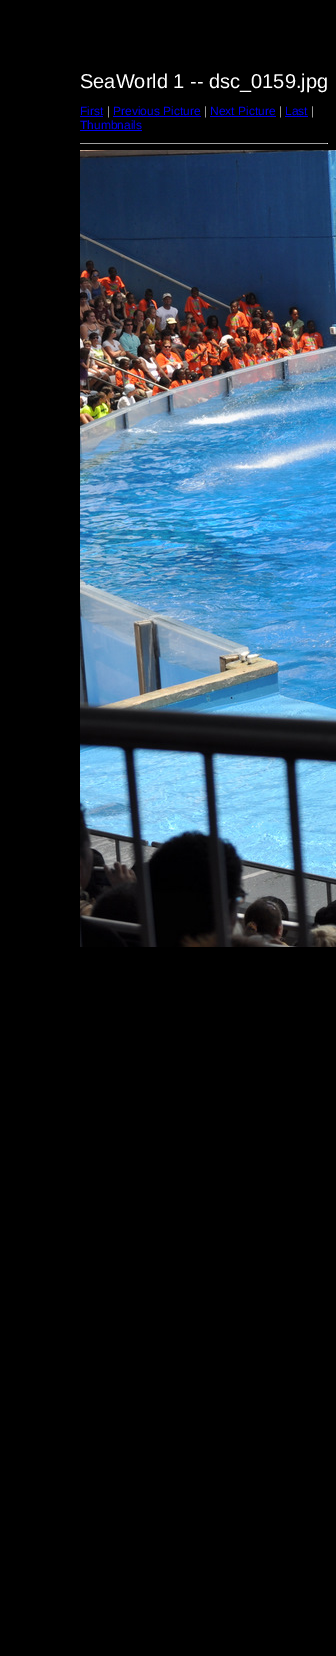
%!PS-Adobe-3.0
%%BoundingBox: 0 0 336 1656
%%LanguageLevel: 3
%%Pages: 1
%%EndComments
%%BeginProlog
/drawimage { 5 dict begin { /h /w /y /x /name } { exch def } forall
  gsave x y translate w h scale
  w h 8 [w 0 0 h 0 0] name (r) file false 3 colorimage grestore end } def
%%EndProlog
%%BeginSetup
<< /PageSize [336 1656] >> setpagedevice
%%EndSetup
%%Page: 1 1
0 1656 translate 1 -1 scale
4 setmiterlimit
0 setgray
0 0 336 1656 rectfill
0 0 0.933 setrgbcolor
80 116 23 1 rectfill
113 116 88 1 rectfill
210 116 66 1 rectfill
285 116 23 1 rectfill
80 130 62 1 rectfill
0.624 setgray
80 143 248 1 rectfill
0.933 setgray
327 143 1 1 rectfill
(images/1.raw) 80 150 256 797 drawimage
/LiberationSans-Regular [20 0 0 -20 0 0] selectfont
1 setgray
80 88 moveto (SeaWorld 1 -- dsc_0159.jpg) show
/LiberationSans-Regular [12 0 0 -12 0 0] selectfont
0 0 0.933 setrgbcolor
80 115 moveto (First) show
0.6 setgray
107 115 moveto (|) show
0 0 0.933 setrgbcolor
113 115 moveto (Previous Picture) show
0.6 setgray
204 115 moveto (|) show
0 0 0.933 setrgbcolor
210 115 moveto (Next Picture) show
0.6 setgray
279 115 moveto (|) show
0 0 0.933 setrgbcolor
285 115 moveto (Last) show
0.6 setgray
311 115 moveto (|) show
0 0 0.933 setrgbcolor
80 129 moveto (Thumbnails) show
showpage
%%EOF
